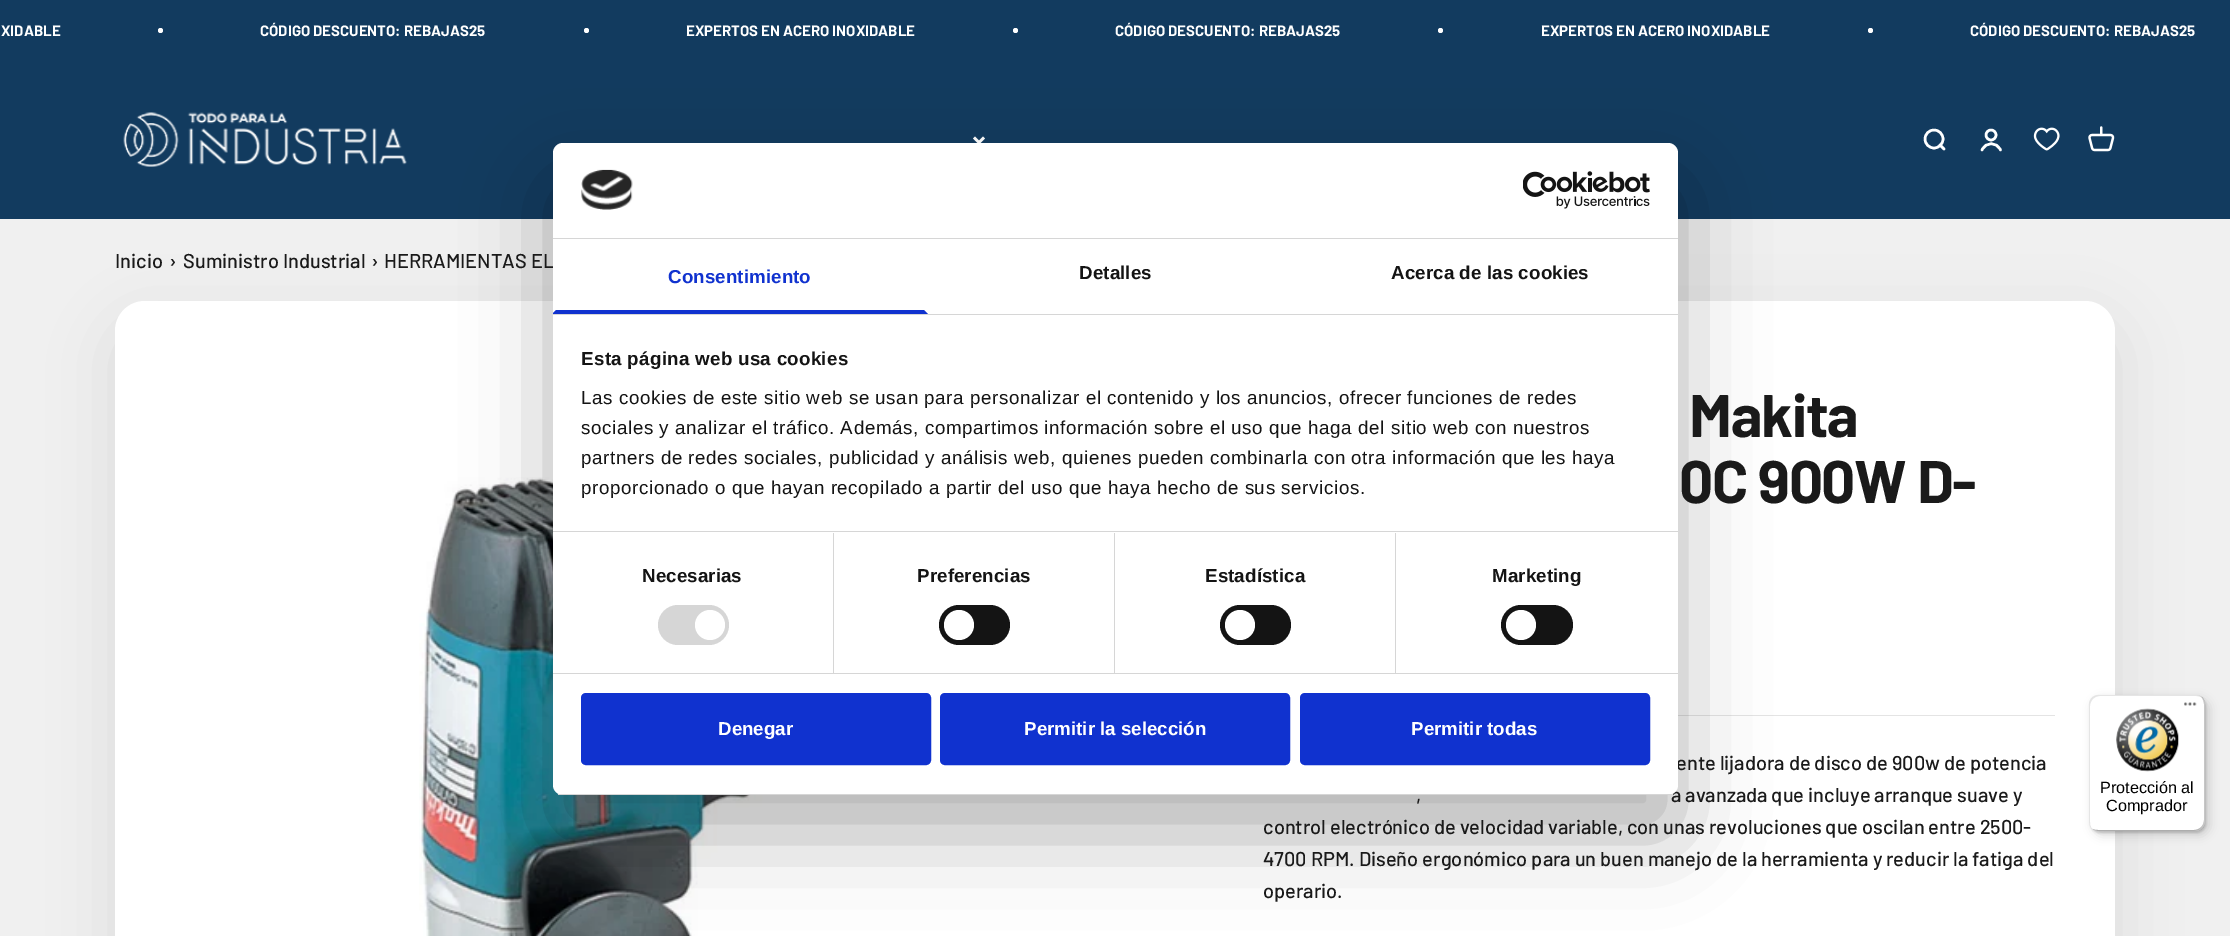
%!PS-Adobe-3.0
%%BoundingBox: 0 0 2230 936
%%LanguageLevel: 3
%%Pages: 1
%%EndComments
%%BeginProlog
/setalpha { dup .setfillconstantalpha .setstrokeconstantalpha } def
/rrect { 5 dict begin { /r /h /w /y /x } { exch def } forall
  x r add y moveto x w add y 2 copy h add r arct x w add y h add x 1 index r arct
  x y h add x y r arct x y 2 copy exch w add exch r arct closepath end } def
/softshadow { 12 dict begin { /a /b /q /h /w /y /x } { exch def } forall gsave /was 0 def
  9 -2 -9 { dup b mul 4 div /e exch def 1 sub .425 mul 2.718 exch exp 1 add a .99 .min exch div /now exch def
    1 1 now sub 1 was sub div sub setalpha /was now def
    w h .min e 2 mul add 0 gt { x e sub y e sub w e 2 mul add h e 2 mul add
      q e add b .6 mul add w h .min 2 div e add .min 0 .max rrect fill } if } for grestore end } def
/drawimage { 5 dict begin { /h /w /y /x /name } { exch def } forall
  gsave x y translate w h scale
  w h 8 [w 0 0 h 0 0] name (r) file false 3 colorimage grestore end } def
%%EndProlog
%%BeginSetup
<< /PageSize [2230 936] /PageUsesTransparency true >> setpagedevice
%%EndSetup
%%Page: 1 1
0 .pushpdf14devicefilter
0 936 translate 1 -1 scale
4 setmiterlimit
0.941 setgray
0 0 2230 936 rectfill
0.071 0.231 0.373 setrgbcolor
0 0 2230 219 rectfill
1 setgray
newpath 160.5 30.5 2.5 0 360 arc closepath fill
newpath 586.5 30.5 2.5 0 360 arc closepath fill
newpath 1015.5 30.5 2.5 0 360 arc closepath fill
newpath 1440.5 30.5 2.5 0 360 arc closepath fill
newpath 1870.5 30.5 2.5 0 360 arc closepath fill
(images/1.raw) 123 112 284 55 drawimage
2.5 setlinewidth
newpath 974 137.5 moveto 979 142.5 lineto 984 137.5 lineto stroke
newpath 1934 139 9 0 360 arc closepath stroke
1 setlinecap
1 setlinejoin
newpath 1940 145 moveto 1944 149 lineto stroke
0 setlinecap
0 setlinejoin
newpath 1991 135 5 0 360 arc closepath stroke
1 setlinecap
newpath 1982 150 moveto 1986 141.5 1996.5 141.5 2000.5 150 curveto stroke
(images/2.raw) 2033 127 27 24 drawimage
(images/3.raw) 2088 126 27 26 drawimage
0.102 setgray
115 324 2000 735 30 31 0.1 softshadow
1 setgray
115 301 2000 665 30 rrect fill
(images/4.raw) 419 477 639 459 drawimage
0.894 setgray
1678 715 377 1 rectfill
0 setgray
553 183 1125 652 10 42.5 0.3 softshadow
2093 699 116 136 10 5 0.15 softshadow
2090 696 116 137 10 1 0.15 softshadow
1 setgray
2089 695 116 136 10 rrect fill
0.1 setalpha
0 setgray
newpath 2100 696 moveto 2196 696 lineto 2199 696 2201 697 2203 698 curveto 2201 696 2198 695 2195 695 curveto 2099 695 lineto 2093 695 2089 699 2089 705 curveto 2089 821 lineto 2089 823 2090 826 2091 827 curveto 2090 826 2090 824 2090 822 curveto 2090 706 lineto 2090 701 2094 696 2100 696 curveto closepath fill
0.2 setalpha
newpath 2093 829 moveto 2094 830 2097 831 2099 831 curveto 2195 831 lineto 2201 831 2205 827 2205 821 curveto 2205 705 lineto 2205 702 2204 699 2202 697 curveto 2203 699 2204 701 2204 704 curveto 2204 820 lineto 2204 826 2199 830 2194 830 curveto 2098 830 lineto 2096 830 2094 830 2093 829 curveto closepath fill
0.196 setgray
newpath 2093 829 moveto 2094 830 2097 831 2099 831 curveto 2195 831 lineto 2201 831 2205 827 2205 821 curveto 2205 705 lineto 2205 702 2204 699 2201 697 curveto 2203 699 2204 702 2204 704 curveto 2204 820 lineto 2204 826 2200 830 2194 830 curveto 2098 830 lineto 2096 830 2094 830 2093 829 curveto closepath fill
0.3 setalpha
1 setgray
newpath 2194 831 moveto 2195 831 lineto 2201 831 2205 827 2205 821 curveto 2205 705 lineto 2205 702 2204 699 2201 697 curveto 2203 699 2204 702 2204 704 curveto 2204 821 lineto 2204 826 2200 831 2194 831 curveto closepath fill
1 setalpha
(images/7.raw) 2184 702 13 4 drawimage
(images/8.raw) 2116 708 63 64 drawimage
/Barlow-Bold [15 0 0 -15 0 0] selectfont
1 36 moveto (XIDABLE) show
260 36 moveto (CÓDIGO DESCUENTO: REBAJAS25) show
686 36 moveto (EXPERTOS EN ACERO INOXIDABLE) show
1115 36 moveto (CÓDIGO DESCUENTO: REBAJAS25) show
1541 36 moveto (EXPERTOS EN ACERO INOXIDABLE) show
1970 36 moveto (CÓDIGO DESCUENTO: REBAJAS25) show
/Barlow-Medium [20 0 0 -20 0 0] selectfont
0.102 setgray
115 268 moveto (Inicio) show
169 268 moveto (›) show
183 268 moveto (Suministro Industrial) show
371 268 moveto (›) show
384 268 moveto (HERRAMIENTAS EL) show
/Barlow-Bold [60 0 0 -60 0 0] selectfont
1689 437 moveto -1.25 0 (Makita) ashow
1679 503 moveto -1.25 0 (0C 900W D-) ashow
/Barlow-Medium [20 0 0 -20 0 0] selectfont
1676 770 moveto (ente lijadora de disco de 900w de potencia) show
1416 802 moveto (,) show
1671 802 moveto (a avanzada que incluye arranque suave y) show
1263 834 moveto (control electrónico de velocidad variable, con unas revoluciones que oscilan entre 2500-) show
1263 866 moveto (4700 RPM. Diseño ergonómico para un buen manejo de la herramienta y reducir la fatiga del) show
1263 898 moveto (operario.) show
1 setgray
553 143 1125 652 10 rrect fill
0.839 setgray
553 238 1125 1 rectfill
(images/5.raw) 581 169 52 41 drawimage
(images/6.raw) 1523 171 127 38 drawimage
553 314 1125 1 rectfill
0.063 0.196 0.812 setrgbcolor
newpath 928 314 moveto 553 314 lineto 553 313 lineto 556 310 lineto 924 310 lineto closepath fill
/LiberationSans-Bold [18.75 0 0 -18.75 0 0] selectfont
668 283 moveto 0.1 0 (Consentimiento) ashow
0.078 setgray
1079 279 moveto 0.1 0 (Detalles) ashow
1391 279 moveto 0.1 0 (Acerca de las cookies) ashow
0.839 setgray
553 531 1125 1 rectfill
0.078 setgray
581 365 moveto 0.3 0 (Esta página web usa cookies) ashow
/LiberationSans-Regular [18.75 0 0 -18.75 0 0] selectfont
581 404 moveto 0.62 0 (Las cookies de este sitio web se usan para personalizar el contenido y los anuncios, ofrecer funciones de redes) ashow
581 434 moveto 0.62 0 (sociales y analizar el tráfico. Además, compartimos información sobre el uso que haga del sitio web con nuestros) ashow
581 464 moveto 0.62 0 (partners de redes sociales, publicidad y análisis web, quienes pueden combinarla con otra información que les haya) ashow
581 494 moveto 0.62 0 (proporcionado o que hayan recopilado a partir del uso que haya hecho de sus servicios.) ashow
0.839 setgray
553 673 1125 1 rectfill
833 533 1 140 rectfill
/LiberationSans-Bold [18.75 0 0 -18.75 0 0] selectfont
0.078 setgray
642 582 moveto 0.1 0 (Necesarias) ashow
0.839 setgray
658 605 71 40 20 rrect fill
1 setgray
newpath 710 625 15 0 360 arc closepath fill
0.839 setgray
1114 533 1 140 rectfill
0.078 setgray
917 582 moveto 0.1 0 (Preferencias) ashow
939 605 71 40 20 rrect fill
1 setgray
newpath 959 625 15 0 360 arc closepath fill
0.839 setgray
1395 533 1 140 rectfill
0.078 setgray
1205 582 moveto 0.1 0 (Estadística) ashow
1220 605 71 40 20 rrect fill
1 setgray
newpath 1240 625 15 0 360 arc closepath fill
0.078 setgray
1492 582 moveto 0.1 0 (Marketing) ashow
1501 605 72 40 20 rrect fill
1 setgray
newpath 1521 625 15 0 360 arc closepath fill
gsave
553 143 1125 652 10 rrect clip newpath
0.839 setgray
553 794 1125 1 rectfill
grestore
0.063 0.196 0.812 setrgbcolor
582.5 694.5 347 69 3.5 rrect gsave fill grestore
3 setlinewidth
0 setlinecap
stroke
1 setgray
718 735 moveto (Denegar) show
0.063 0.196 0.812 setrgbcolor
941.5 694.5 347 69 3.5 rrect gsave fill grestore
stroke
1 setgray
1024 735 moveto (Permitir la selección) show
0.063 0.196 0.812 setrgbcolor
1301.5 694.5 347 69 3.5 rrect gsave fill grestore
stroke
1 setgray
1411 735 moveto (Permitir todas) show
/LiberationSans-Regular [16.25 0 0 -16.25 0 0] selectfont
0 setgray
2100 793 moveto (Protección al) show
2106 811 moveto (Comprador) show
.poppdf14devicefilter showpage
%%EOF
